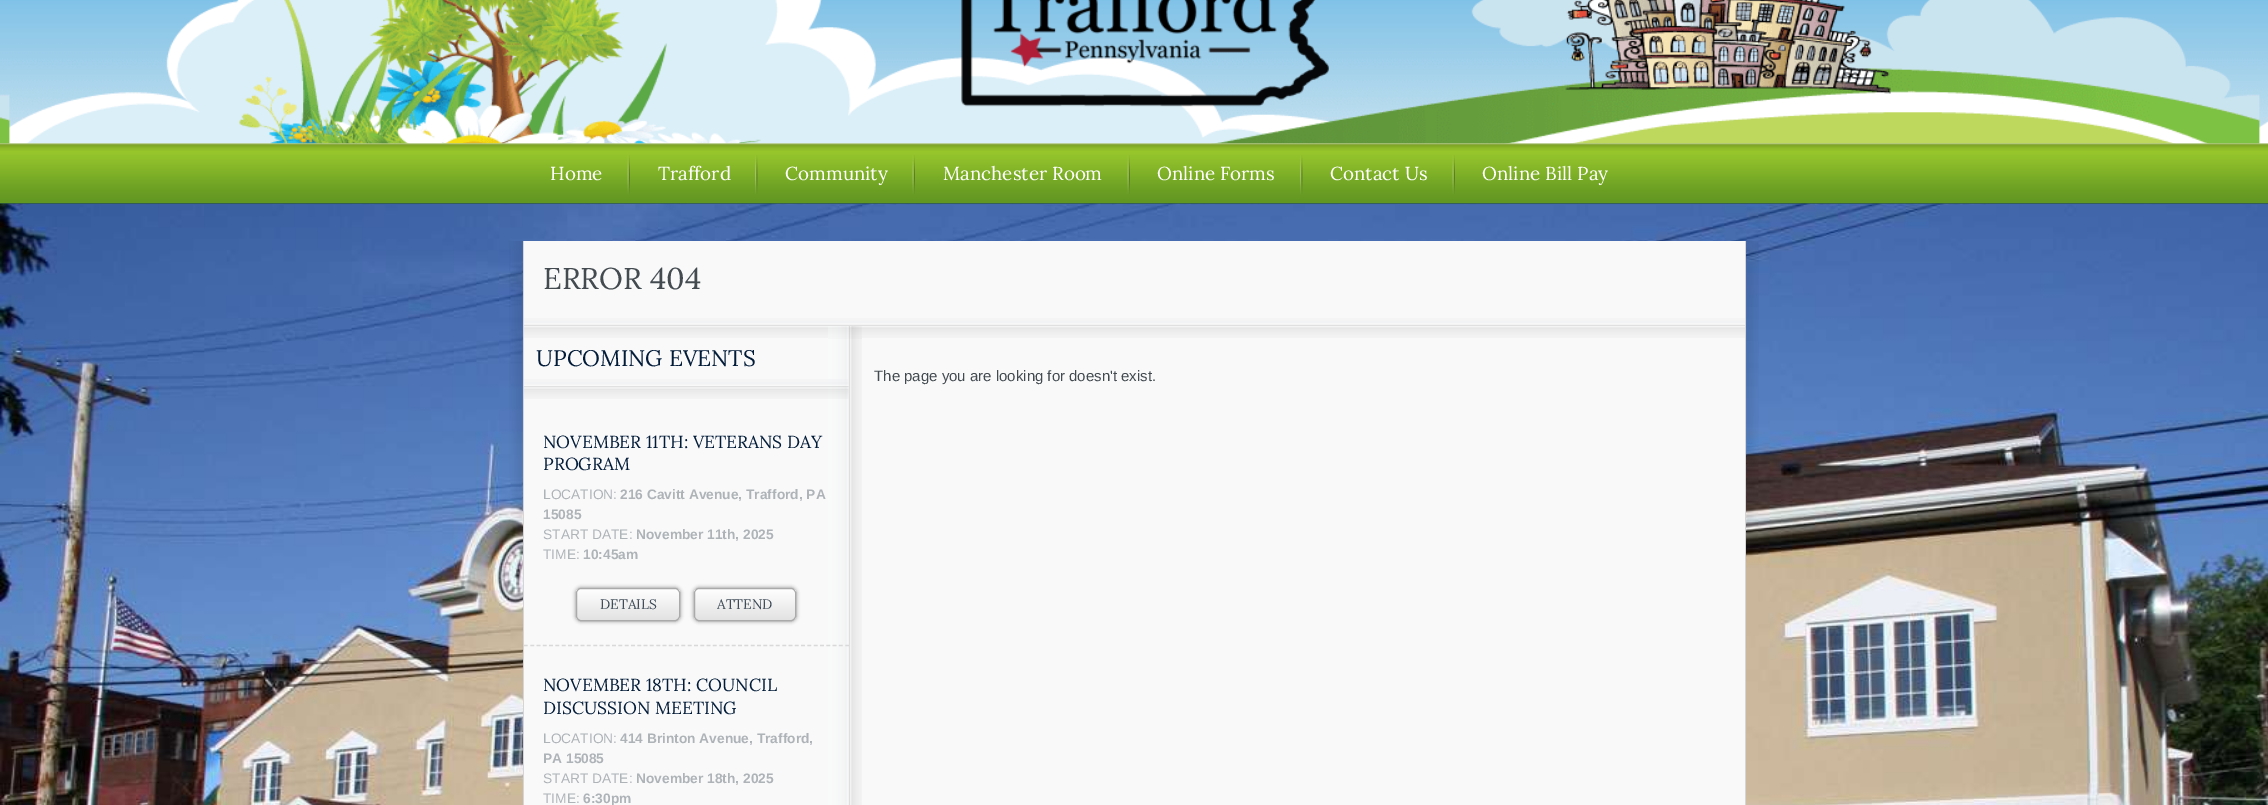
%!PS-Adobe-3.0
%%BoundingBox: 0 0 2268 805
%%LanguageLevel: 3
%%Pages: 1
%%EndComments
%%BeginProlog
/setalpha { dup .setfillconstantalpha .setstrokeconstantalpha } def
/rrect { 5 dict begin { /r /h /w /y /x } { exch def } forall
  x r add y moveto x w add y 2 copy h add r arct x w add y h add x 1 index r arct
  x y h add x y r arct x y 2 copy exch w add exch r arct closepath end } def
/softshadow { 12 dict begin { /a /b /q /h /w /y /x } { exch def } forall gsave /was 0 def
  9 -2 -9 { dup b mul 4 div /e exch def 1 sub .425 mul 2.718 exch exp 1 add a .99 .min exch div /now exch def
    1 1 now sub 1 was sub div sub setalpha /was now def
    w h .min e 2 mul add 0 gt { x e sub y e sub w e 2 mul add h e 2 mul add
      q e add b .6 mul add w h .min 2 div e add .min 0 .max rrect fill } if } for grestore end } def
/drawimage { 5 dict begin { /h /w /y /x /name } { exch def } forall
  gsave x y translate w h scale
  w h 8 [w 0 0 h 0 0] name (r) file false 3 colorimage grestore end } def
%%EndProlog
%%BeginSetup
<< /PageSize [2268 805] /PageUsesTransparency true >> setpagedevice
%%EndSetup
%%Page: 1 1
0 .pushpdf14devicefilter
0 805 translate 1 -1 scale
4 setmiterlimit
0 0.125 0.349 setrgbcolor
0 0 2268 805 rectfill
(images/1.raw) 0 0 2268 144 drawimage
(images/2.raw) 961 0 368 107 drawimage
(images/3.raw) 0 143 2268 61 drawimage
(images/4.raw) 0 143 2268 8 drawimage
(images/5.raw) 627 155 3 39 drawimage
(images/6.raw) 755 155 3 39 drawimage
(images/5.raw) 912 155 3 39 drawimage
(images/5.raw) 1127 155 3 39 drawimage
(images/6.raw) 1300 155 3 39 drawimage
(images/5.raw) 1452 155 3 39 drawimage
(images/7.raw) 0 203 2268 602 drawimage
(images/8.raw) 509 241 1250 313 drawimage
0.976 setgray
524 241 1221 564 rectfill
0.835 setgray
1745 241 1 564 rectfill
523 241 1 564 rectfill
(images/9.raw) 524 318 1221 20 drawimage
(images/10.raw) 828 326 34 479 drawimage
(images/11.raw) 524 379 325 20 drawimage
0.851 setgray
1.2 setlinewidth
[3.75 2.55] 0 setdash
newpath 524 645.5 moveto 849 645.5 lineto stroke
0 setgray
576 588 104 33 5 2 0.5 softshadow
gsave
576 588 104 33 5 rrect clip newpath
gsave newpath 576 589 moveto 680 589 lineto 680 620 lineto 576 620 lineto closepath clip newpath
<< /ShadingType 2 /ColorSpace /DeviceRGB /Coords [578 589 578 620] /Extend [true true] /Function << /FunctionType 2 /Domain [0 1] /C0 [1 1 1] /C1 [0.886 0.886 0.886] /N 1 >> >> shfill grestore
grestore
0.667 setgray
1 setlinewidth
[] 0 setdash
576.5 588.5 103 32 4.5 rrect stroke
0 setgray
694 588 102 33 5 2 0.5 softshadow
gsave
694 588 102 33 5 rrect clip newpath
gsave newpath 694 589 moveto 796 589 lineto 796 620 lineto 694 620 lineto closepath clip newpath
<< /ShadingType 2 /ColorSpace /DeviceRGB /Coords [695 589 695 620] /Extend [true true] /Function << /FunctionType 2 /Domain [0 1] /C0 [1 1 1] /C1 [0.886 0.886 0.886] /N 1 >> >> shfill grestore
grestore
0.667 setgray
694.5 588.5 101 32 4.5 rrect stroke
/Lora-Regular [18.75 0 0 -18.75 0 0] selectfont
1 setgray
550 180 moveto (Home) show
658 180 moveto (Trafford) show
785 180 moveto (Community) show
943 180 moveto (Manchester Room) show
1157 180 moveto (Online Forms) show
1330 180 moveto (Contact Us) show
1482 180 moveto (Online Bill Pay) show
/Lora-Regular [30 0 0 -30 0 0] selectfont
0.263 0.294 0.318 setrgbcolor
543 289 moveto (ERROR 404) show
/Lora-Regular [22.5 0 0 -22.5 0 0] selectfont
0.004 0.106 0.22 setrgbcolor
536 366 moveto (UPCOMING EVENTS) show
/Lora-Regular [17.5 0 0 -17.5 0 0] selectfont
543 448 moveto (NOVEMBER 11TH: VETERANS DAY) show
543 470 moveto (PROGRAM) show
/LiberationSans-Regular [13.75 0 0 -13.75 0 0] selectfont
0.682 0.702 0.722 setrgbcolor
543 499 moveto (LOCATION:) show
/LiberationSans-Bold [13.75 0 0 -13.75 0 0] selectfont
620 499 moveto (216 Cavitt Avenue, Trafford, PA) show
543 519 moveto (15085) show
/LiberationSans-Regular [13.75 0 0 -13.75 0 0] selectfont
543 539 moveto (START DATE:) show
/LiberationSans-Bold [13.75 0 0 -13.75 0 0] selectfont
636 539 moveto (November 11th, 2025) show
/LiberationSans-Regular [13.75 0 0 -13.75 0 0] selectfont
543 559 moveto (TIME:) show
/LiberationSans-Bold [13.75 0 0 -13.75 0 0] selectfont
583 559 moveto (10:45am) show
/Lora-Regular [13.75 0 0 -13.75 0 0] selectfont
0.243 0.294 0.341 setrgbcolor
600 609 moveto (DETAILS) show
717 609 moveto (ATTEND) show
/Lora-Regular [17.5 0 0 -17.5 0 0] selectfont
0.004 0.106 0.22 setrgbcolor
543 691 moveto (NOVEMBER 18TH: COUNCIL) show
543 714 moveto (DISCUSSION MEETING) show
/LiberationSans-Regular [13.75 0 0 -13.75 0 0] selectfont
0.682 0.702 0.722 setrgbcolor
543 743 moveto (LOCATION:) show
/LiberationSans-Bold [13.75 0 0 -13.75 0 0] selectfont
620 743 moveto (414 Brinton Avenue, Trafford,) show
543 763 moveto (PA 15085) show
/LiberationSans-Regular [13.75 0 0 -13.75 0 0] selectfont
543 783 moveto (START DATE:) show
/LiberationSans-Bold [13.75 0 0 -13.75 0 0] selectfont
636 783 moveto (November 18th, 2025) show
/LiberationSans-Regular [13.75 0 0 -13.75 0 0] selectfont
543 803 moveto (TIME:) show
/LiberationSans-Bold [13.75 0 0 -13.75 0 0] selectfont
583 803 moveto (6:30pm) show
/LiberationSans-Regular [15 0 0 -15 0 0] selectfont
0.263 0.294 0.318 setrgbcolor
874 381 moveto (The page you are looking for doesn't exist.) show
.poppdf14devicefilter showpage
%%EOF
